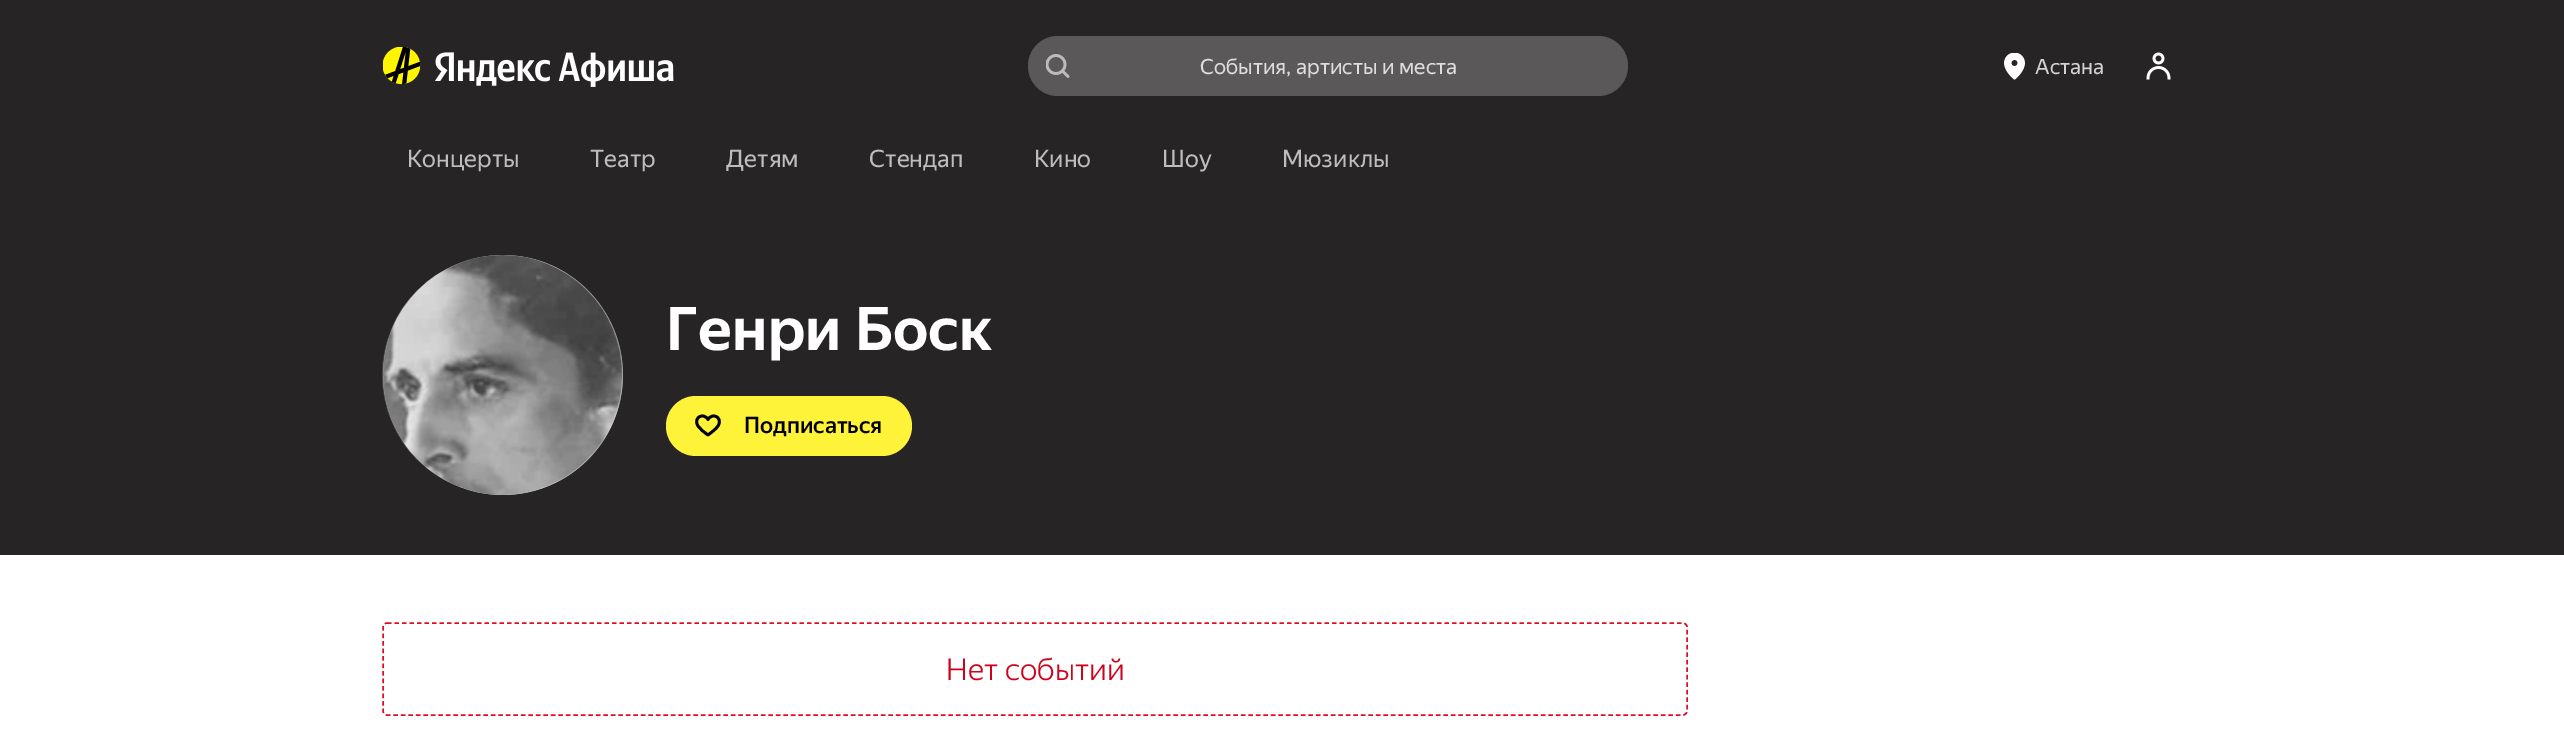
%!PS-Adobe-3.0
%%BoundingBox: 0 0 2564 735
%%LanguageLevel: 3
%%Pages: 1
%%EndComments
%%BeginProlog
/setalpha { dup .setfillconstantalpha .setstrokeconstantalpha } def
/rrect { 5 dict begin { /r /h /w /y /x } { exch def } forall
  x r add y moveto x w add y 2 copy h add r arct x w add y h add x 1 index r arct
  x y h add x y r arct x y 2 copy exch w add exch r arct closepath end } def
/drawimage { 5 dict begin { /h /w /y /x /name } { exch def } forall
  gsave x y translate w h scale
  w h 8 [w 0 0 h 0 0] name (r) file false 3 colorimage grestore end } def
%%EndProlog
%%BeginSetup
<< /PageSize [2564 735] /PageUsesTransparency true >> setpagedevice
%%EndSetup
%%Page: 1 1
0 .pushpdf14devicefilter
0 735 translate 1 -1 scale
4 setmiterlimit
1 setgray
0 0 2564 735 rectfill
0.149 0.141 0.141 setrgbcolor
0 0 2564 555 rectfill
(images/1.raw) 383 47 38 38 drawimage
(images/2.raw) 435 52 239 35 drawimage
(images/3.raw) 1046 54 24 24 drawimage
(images/4.raw) 2004 53 21 27 drawimage
(images/5.raw) 2146 52 25 28 drawimage
0.847 setgray
newpath 503 375 120 0 360 arc closepath fill
(images/6.raw) 382 255 241 240 drawimage
0.996 0.953 0.224 setrgbcolor
666 396 246 60 30 rrect fill
0 setgray
2.8 setlinewidth
2 setlinecap
1 setlinejoin
newpath 708 435 moveto 704.5 432.5 699.5 429 697.5 425 curveto 693.5 417.5 703.5 412 708 419.5 curveto 712.5 412 722.5 417.5 718.5 425 curveto 716.5 429 711 432.5 708 435 curveto closepath stroke
0.875 0.043 0.133 setrgbcolor
1.5 setlinewidth
0 setlinecap
0 setlinejoin
[4.5 3] 0 setdash
newpath 387 623 moveto 1683 623 lineto 1685 623 1687 625 1687 627 curveto 1687 711 lineto 1687 713 1685 715 1683 715 curveto 387 715 lineto 385 715 383 713 383 711 curveto 383 627 lineto 383 625 385 623 387 623 curveto closepath stroke
/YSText-Regular [21 0 0 -21 0 0] selectfont
0.831 0.827 0.827 setrgbcolor
1200 74 moveto (События, артисты и места) show
0.24 setalpha
1 setgray
1028 36 600 60 30 rrect fill
1 setalpha
0.831 0.827 0.827 setrgbcolor
2035 74 moveto (Астана) show
/YSText-Regular [24 0 0 -24 0 0] selectfont
0.745 0.741 0.741 setrgbcolor
407 167 moveto (Концерты) show
590 167 moveto (Театр) show
726 167 moveto (Детям) show
869 167 moveto (Стендап) show
1034 167 moveto (Кино) show
1162 167 moveto (Шоу) show
1282 167 moveto (Мюзиклы) show
/YSText-Bold [60 0 0 -60 0 0] selectfont
1 setgray
666 350 moveto (Генри Боск) show
/YSText-Medium [22.5 0 0 -22.5 0 0] selectfont
0 setgray
744 433 moveto (Подписаться) show
/YSText-Light [30 0 0 -30 0 0] selectfont
0.816 0.008 0.106 setrgbcolor
946 680 moveto (Нет событий) show
.poppdf14devicefilter showpage
%%EOF
